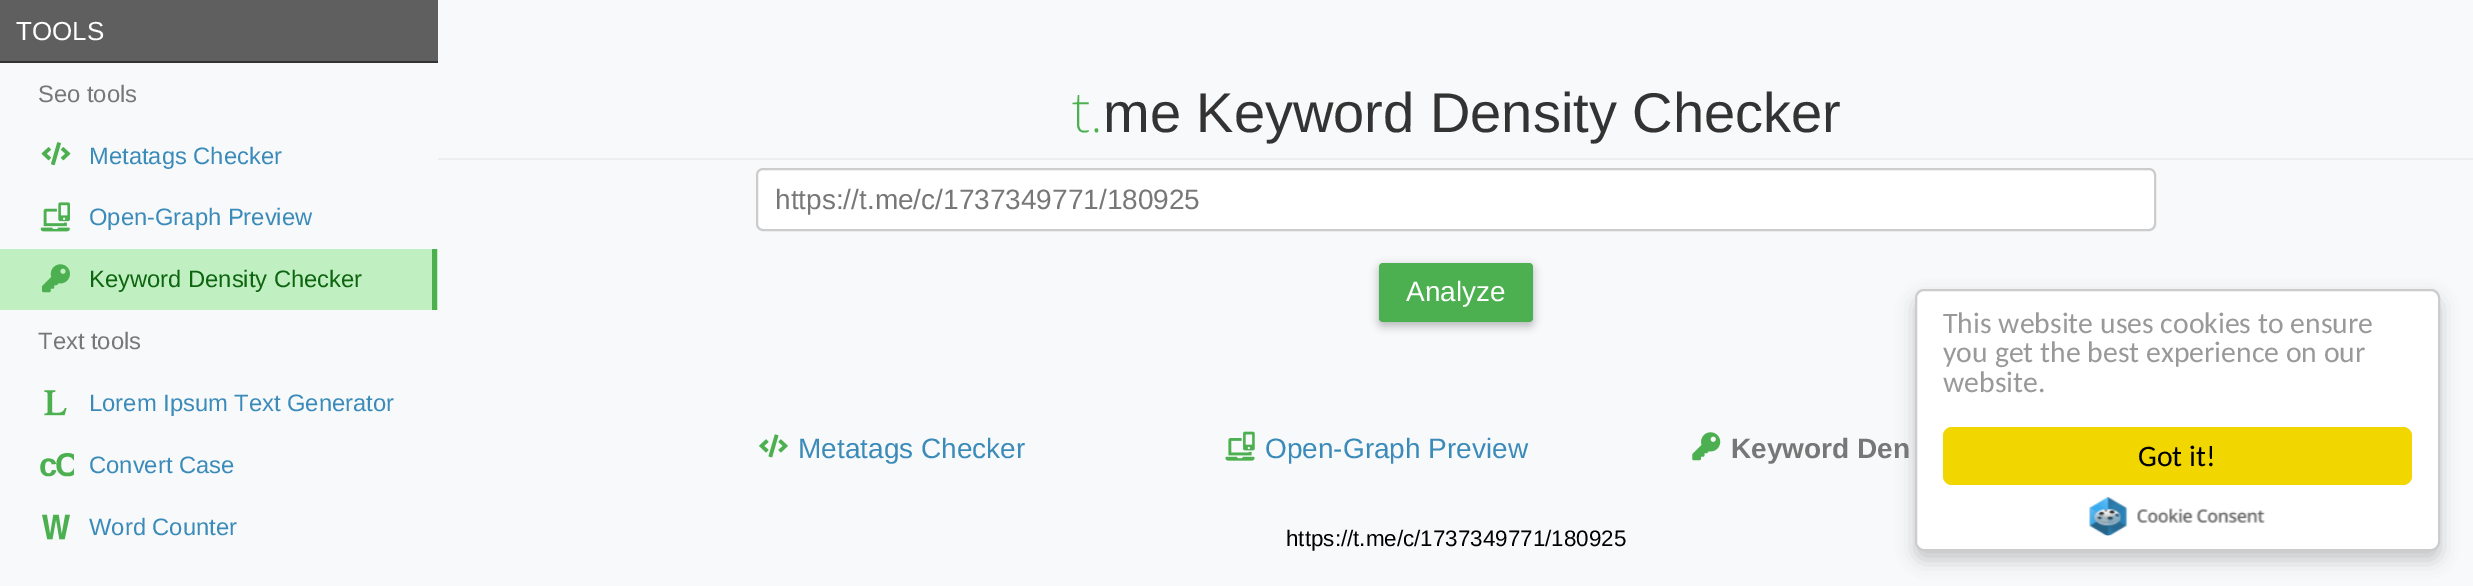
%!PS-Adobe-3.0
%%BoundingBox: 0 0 2473 586
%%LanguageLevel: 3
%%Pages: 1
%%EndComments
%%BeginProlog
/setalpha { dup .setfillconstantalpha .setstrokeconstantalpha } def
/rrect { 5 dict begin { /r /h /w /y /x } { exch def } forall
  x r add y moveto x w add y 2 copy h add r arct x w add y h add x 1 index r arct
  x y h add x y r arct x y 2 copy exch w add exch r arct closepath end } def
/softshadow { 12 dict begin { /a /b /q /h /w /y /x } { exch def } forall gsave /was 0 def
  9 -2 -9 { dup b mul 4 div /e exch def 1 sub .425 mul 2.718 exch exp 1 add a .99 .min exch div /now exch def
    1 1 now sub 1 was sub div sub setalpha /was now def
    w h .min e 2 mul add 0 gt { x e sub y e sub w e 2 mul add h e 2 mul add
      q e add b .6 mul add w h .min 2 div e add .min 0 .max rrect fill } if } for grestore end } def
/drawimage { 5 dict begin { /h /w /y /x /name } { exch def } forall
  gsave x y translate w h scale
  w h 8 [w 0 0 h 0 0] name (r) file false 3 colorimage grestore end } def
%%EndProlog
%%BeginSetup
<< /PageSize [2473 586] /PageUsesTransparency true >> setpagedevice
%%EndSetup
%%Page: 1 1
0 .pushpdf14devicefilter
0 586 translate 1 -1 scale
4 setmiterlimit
0.973 0.976 0.98 setrgbcolor
0 0 2473 586 rectfill
0.373 setgray
0 0 438 61 rectfill
0.2 setgray
0 61 438 2 rectfill
(images/1.raw) 41 142 30 24 drawimage
(images/2.raw) 40 202 30 30 drawimage
0.753 0.937 0.761 setrgbcolor
0 249 438 61 rectfill
0.298 0.686 0.314 setrgbcolor
432 249 5 61 rectfill
(images/3.raw) 42 264 28 29 drawimage
(images/4.raw) 44 390 23 26 drawimage
(images/5.raw) 42 514 28 26 drawimage
0.933 setgray
438 158 2035 2 rectfill
1 setgray
757 169 1398 61 6 rrect gsave fill grestore
0.8 setgray
2 setlinewidth
stroke
0 setgray
1379 266 154 60 4 4.5 0.26 softshadow
0.298 0.686 0.314 setrgbcolor
1379 263 154 59 4 rrect fill
(images/6.raw) 759 434 29 24 drawimage
(images/7.raw) 1225 431 30 30 drawimage
(images/8.raw) 1692 432 29 29 drawimage
0 setgray
1915 298 525 262 9 9 0.2 softshadow
1 setgray
1916 290 523 260 8 rrect gsave fill grestore
0.8 setgray
stroke
0.945 0.839 0 setrgbcolor
1943 427 469 58 9 rrect fill
(images/9.raw) 2089 497 176 39 drawimage
/LiberationSans-Regular [26 0 0 -26 0 0] selectfont
1 setgray
16 40 moveto (TOOLS) show
/LiberationSans-Regular [23.75 0 0 -23.75 0 0] selectfont
0.467 setgray
38 102 moveto (Seo tools) show
0.231 0.545 0.729 setrgbcolor
89 164 moveto (Metatags Checker) show
89 225 moveto (Open-Graph Preview) show
0.051 0.396 0.059 setrgbcolor
89 287 moveto (Keyword Density Checker) show
0.467 setgray
38 349 moveto (Text tools) show
0.231 0.545 0.729 setrgbcolor
89 411 moveto (Lorem Ipsum Text Generator) show
gsave
39 446 35 35 rectclip
/LiberationSans-Bold [33 0 0 -33 0 0] selectfont
0.298 0.686 0.314 setrgbcolor
39 476 moveto -2 0 (cC) ashow
grestore
89 473 moveto (Convert Case) show
89 535 moveto (Word Counter) show
/NotoSans-ExtraLight [56 0 0 -56 0 0] selectfont
0.298 0.686 0.314 setrgbcolor
1072 132 moveto (t.) show
/LiberationSans-Regular [56 0 0 -56 0 0] selectfont
0.2 setgray
1103 132 moveto (me Keyword Density Checker) show
/LiberationSans-Regular [28 0 0 -28 0 0] selectfont
0.467 setgray
775 209 moveto (https://t.me/c/1737349771/180925) show
1 setgray
1406 301 moveto (Analyze) show
0.231 0.545 0.729 setrgbcolor
798 458 moveto (Metatags Checker) show
1265 458 moveto (Open-Graph Preview) show
/LiberationSans-Bold [28 0 0 -28 0 0] selectfont
0.467 setgray
1731 458 moveto (Keyword Den) show
/LiberationSans-Regular [22.4 0 0 -22.4 0 0] selectfont
0 setgray
1286 546 moveto (https://t.me/c/1737349771/180925) show
/Carlito-Regular [29.75 0 0 -29.75 0 0] selectfont
0.6 setgray
1943 333 moveto (This website uses cookies to ensure) show
1943 362 moveto (you get the best experience on our) show
1943 392 moveto (website.) show
0 setgray
2138 466 moveto (Got it!) show
.poppdf14devicefilter showpage
%%EOF
